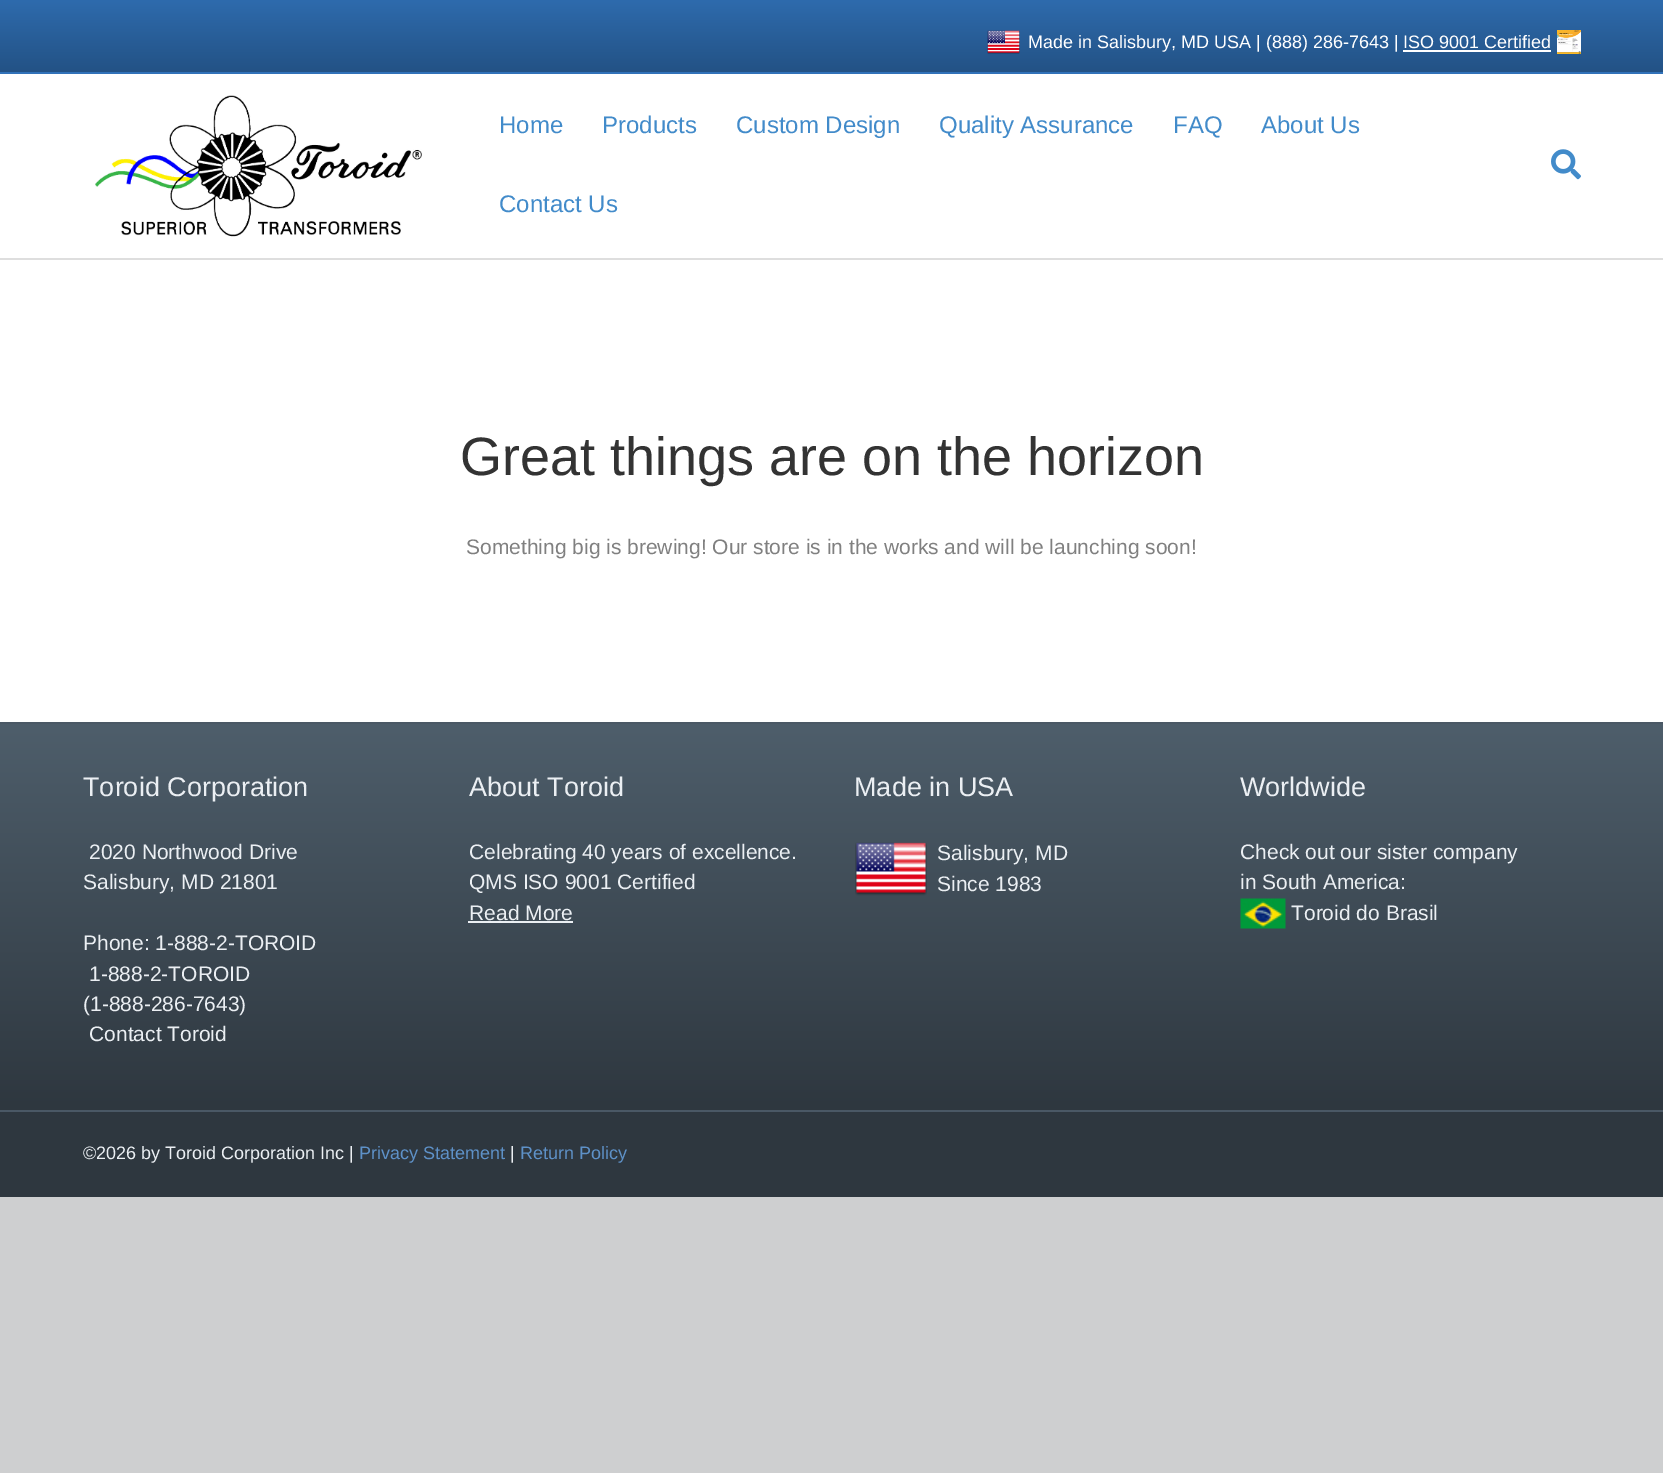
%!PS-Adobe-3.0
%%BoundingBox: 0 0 1663 1473
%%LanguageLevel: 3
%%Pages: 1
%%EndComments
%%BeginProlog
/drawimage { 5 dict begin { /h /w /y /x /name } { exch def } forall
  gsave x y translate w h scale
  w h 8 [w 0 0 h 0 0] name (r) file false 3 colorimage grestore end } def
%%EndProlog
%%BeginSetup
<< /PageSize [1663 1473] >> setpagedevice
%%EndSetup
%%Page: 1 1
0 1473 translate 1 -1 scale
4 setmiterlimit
0.808 0.812 0.816 setrgbcolor
0 0 1663 1473 rectfill
gsave newpath 0 0 moveto 1663 0 lineto 1663 72 lineto 0 72 lineto closepath clip newpath
<< /ShadingType 2 /ColorSpace /DeviceRGB /Coords [832 0 832 72] /Extend [true true] /Function << /FunctionType 2 /Domain [0 1] /C0 [0.18 0.42 0.678] /C1 [0.137 0.322 0.522] /N 1 >> >> shfill grestore
0.192 0.447 0.725 setrgbcolor
0 72 1663 2 rectfill
(images/1.raw) 987 30 33 24 drawimage
(images/2.raw) 1557 30 24 24 drawimage
1 setgray
1403 50 148 2 rectfill
0 74 1663 184 rectfill
0.871 setgray
0 258 1663 2 rectfill
(images/3.raw) 95 95 327 142 drawimage
(images/4.raw) 1551 149 30 31 drawimage
1 setgray
0 260 1663 462 rectfill
gsave newpath 0 724 moveto 1663 724 lineto 1663 1110 lineto 0 1110 lineto closepath clip newpath
<< /ShadingType 2 /ColorSpace /DeviceRGB /Coords [832 723 832 1110] /Extend [true true] /Function << /FunctionType 2 /Domain [0 1] /C0 [0.306 0.369 0.42] /C1 [0.18 0.216 0.247] /N 1 >> >> shfill grestore
0.29 0.345 0.396 setrgbcolor
0 722 1663 2 rectfill
0.922 0.937 0.953 setrgbcolor
468 921 105 2 rectfill
(images/5.raw) 855 842 72 54 drawimage
(images/6.raw) 1240 898 46 31 drawimage
0.18 0.216 0.247 setrgbcolor
0 1112 1663 85 rectfill
0.29 0.345 0.396 setrgbcolor
0 1110 1663 2 rectfill
/LiberationSans-Regular [18 0 0 -18 0 0] selectfont
1 setgray
1028 48 moveto (Made in Salisbury, MD USA | \(888\) 286-7643 | ISO 9001 Certified) show
/LiberationSans-Regular [24 0 0 -24 0 0] selectfont
0.259 0.545 0.792 setrgbcolor
499 133 moveto (Home) show
602 133 moveto (Products) show
736 133 moveto (Custom Design) show
939 133 moveto (Quality Assurance) show
1173 133 moveto (FAQ) show
1261 133 moveto (About Us) show
499 212 moveto (Contact Us) show
/LiberationSans-Regular [54 0 0 -54 0 0] selectfont
0.2 setgray
460 475 moveto (Great things are on the horizon) show
/LiberationSans-Regular [21 0 0 -21 0 0] selectfont
0.502 setgray
466 554 moveto (Something big is brewing! Our store is in the works and will be launching soon!) show
/LiberationSans-Regular [27 0 0 -27 0 0] selectfont
0.922 0.937 0.953 setrgbcolor
83 796 moveto (Toroid Corporation) show
/LiberationSans-Regular [21 0 0 -21 0 0] selectfont
89 859 moveto (2020 Northwood Drive) show
83 889 moveto (Salisbury, MD 21801) show
83 950 moveto (Phone: 1-888-2-TOROID) show
89 981 moveto (1-888-2-TOROID) show
83 1011 moveto (\(1-888-286-7643\)) show
89 1041 moveto (Contact Toroid) show
/LiberationSans-Regular [27 0 0 -27 0 0] selectfont
469 796 moveto (About Toroid) show
/LiberationSans-Regular [21 0 0 -21 0 0] selectfont
469 859 moveto (Celebrating 40 years of excellence.) show
469 889 moveto (QMS ISO 9001 Certified) show
469 920 moveto (Read More) show
/LiberationSans-Regular [27 0 0 -27 0 0] selectfont
854 796 moveto (Made in USA) show
/LiberationSans-Regular [21 0 0 -21 0 0] selectfont
937 860 moveto (Salisbury, MD) show
937 891 moveto (Since 1983) show
/LiberationSans-Regular [27 0 0 -27 0 0] selectfont
1240 796 moveto (Worldwide) show
/LiberationSans-Regular [21 0 0 -21 0 0] selectfont
1240 859 moveto (Check out our sister company) show
1240 889 moveto (in South America:) show
1291 920 moveto (Toroid do Brasil) show
/LiberationSans-Regular [18 0 0 -18 0 0] selectfont
83 1159 moveto (©2026 by Toroid Corporation Inc |) show
0.369 0.569 0.784 setrgbcolor
359 1159 moveto (Privacy Statement) show
0.922 0.937 0.953 setrgbcolor
510 1159 moveto (|) show
0.369 0.569 0.784 setrgbcolor
520 1159 moveto (Return Policy) show
showpage
%%EOF
